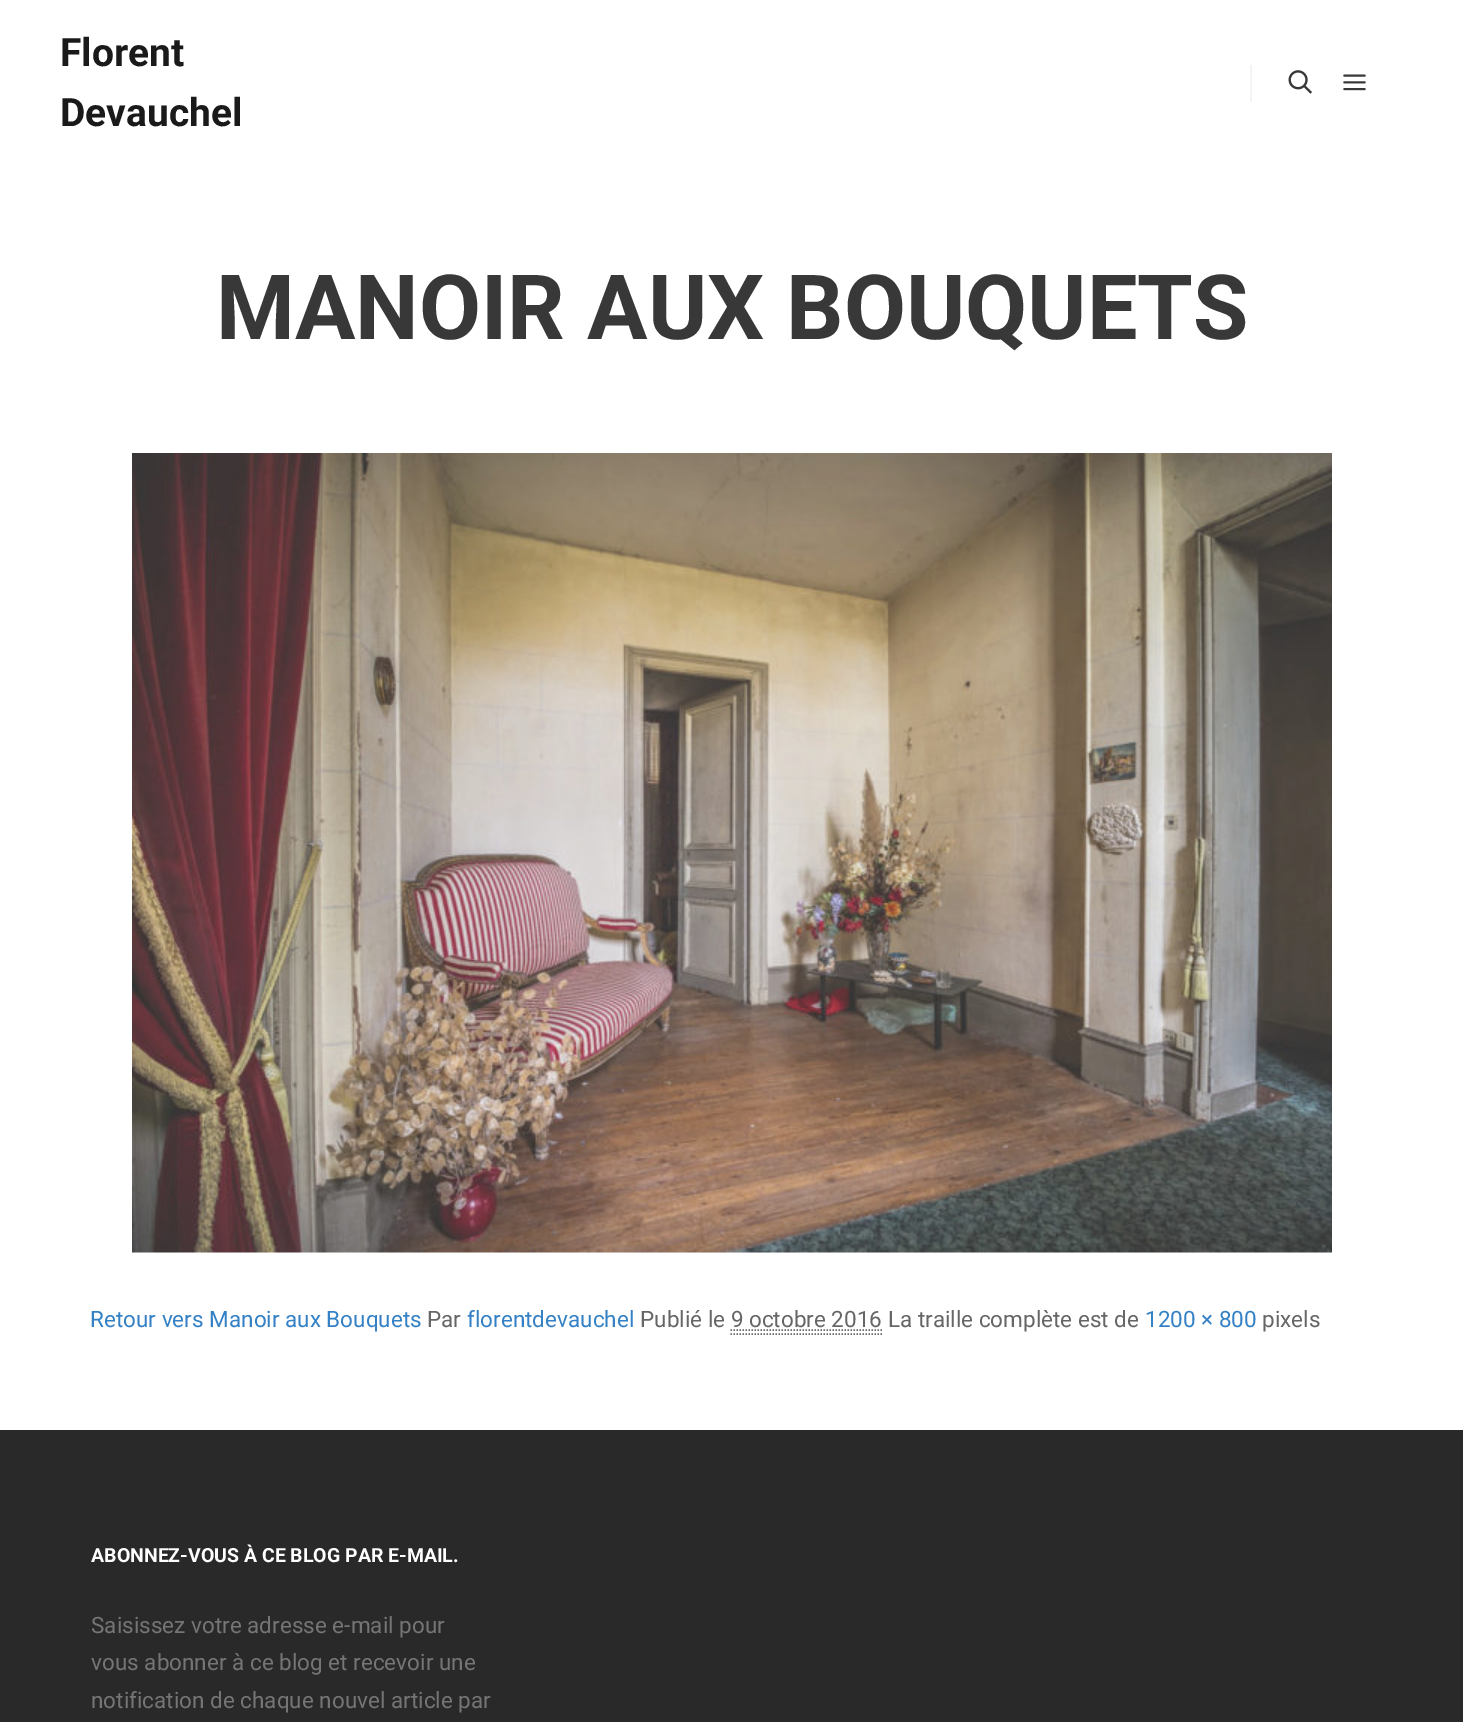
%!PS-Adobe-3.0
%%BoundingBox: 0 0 1463 1722
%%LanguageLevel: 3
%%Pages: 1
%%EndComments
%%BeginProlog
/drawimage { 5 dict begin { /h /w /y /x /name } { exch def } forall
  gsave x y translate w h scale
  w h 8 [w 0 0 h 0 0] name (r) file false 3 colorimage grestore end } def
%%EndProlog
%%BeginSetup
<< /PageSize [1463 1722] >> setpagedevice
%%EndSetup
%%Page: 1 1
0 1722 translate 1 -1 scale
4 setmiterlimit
1 setgray
0 0 1463 1722 rectfill
0.957 setgray
1250 65 2 37 rectfill
(images/1.raw) 1288 70 24 24 drawimage
(images/2.raw) 1343 74 23 17 drawimage
(images/3.raw) 132 453 1200 800 drawimage
0.4 setgray
1.5 setlinewidth
[1.5 1.5] 0 setdash
newpath 730.5 1334 moveto 882 1334 lineto stroke
newpath 730.5 1330 moveto 882 1330 lineto stroke
0.161 setgray
0 1430 1463 292 rectfill
/Roboto-Bold [39 0 0 -39 0 0] selectfont
0.102 setgray
60 66 moveto (Florent) show
60 126 moveto (Devauchel) show
/Roboto-Bold [90 0 0 -90 0 0] selectfont
0.22 setgray
216 339 moveto (MANOIR AUX BOUQUETS) show
/Roboto-Regular [22.5 0 0 -22.5 0 0] selectfont
0.208 0.506 0.773 setrgbcolor
90 1327 moveto (Retour vers Manoir aux Bouquets) show
0.4 setgray
427 1327 moveto (Par) show
0.208 0.506 0.773 setrgbcolor
467 1327 moveto (florentdevauchel) show
0.4 setgray
640 1327 moveto (Publié le 9 octobre 2016 La traille complète est de) show
0.208 0.506 0.773 setrgbcolor
1145 1327 moveto (1200 × 800) show
0.4 setgray
1262 1327 moveto (pixels) show
/Roboto-Bold [19.5 0 0 -19.5 0 0] selectfont
1 setgray
91 1562 moveto (ABONNEZ-VOUS À CE BLOG PAR E-MAIL.) show
/Roboto-Regular [22.5 0 0 -22.5 0 0] selectfont
0.459 setgray
91 1633 moveto (Saisissez votre adresse e-mail pour) show
91 1670 moveto (vous abonner à ce blog et recevoir une) show
91 1708 moveto (notification de chaque nouvel article par) show
showpage
%%EOF
